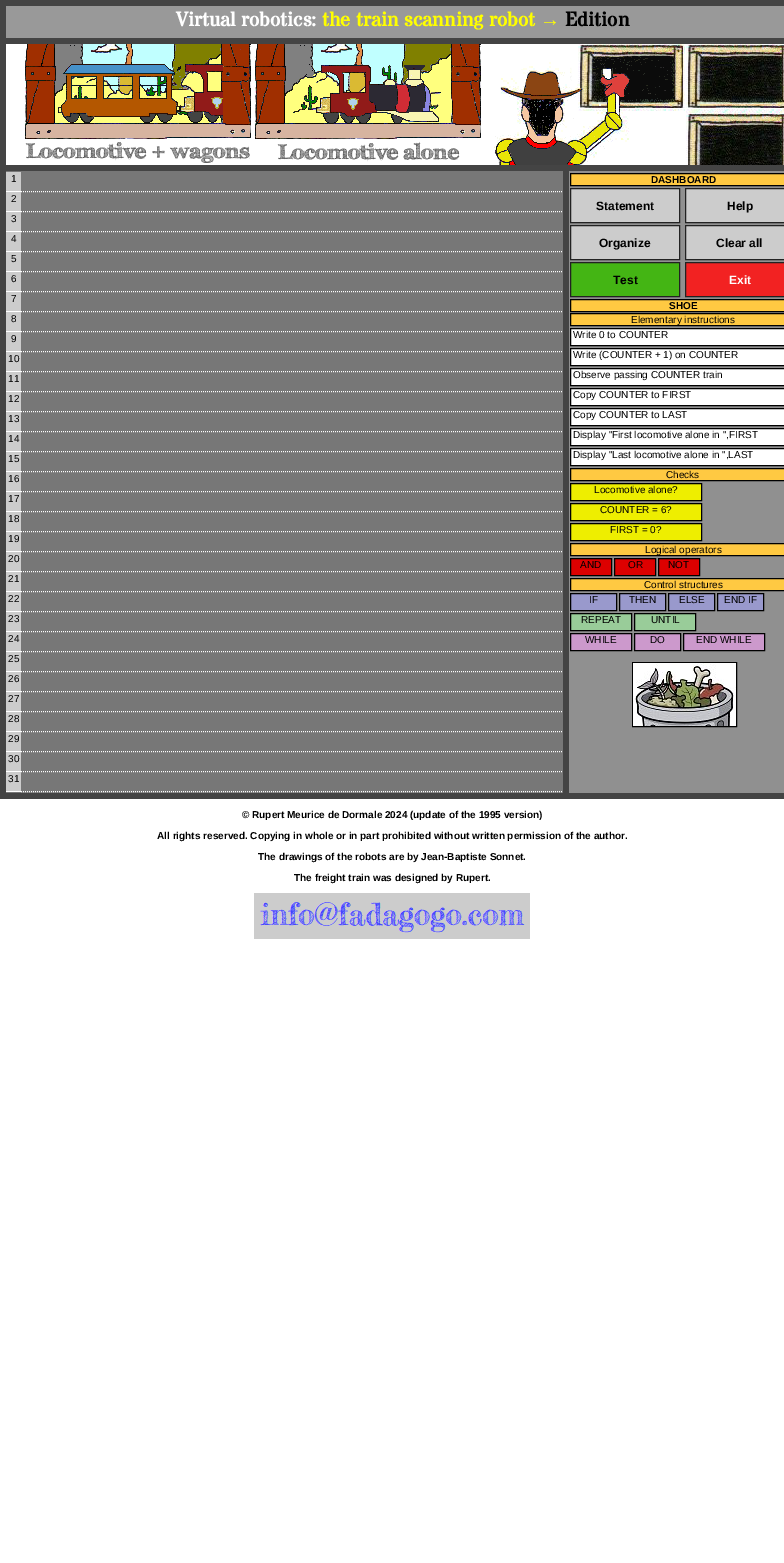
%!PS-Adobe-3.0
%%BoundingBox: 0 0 784 1563
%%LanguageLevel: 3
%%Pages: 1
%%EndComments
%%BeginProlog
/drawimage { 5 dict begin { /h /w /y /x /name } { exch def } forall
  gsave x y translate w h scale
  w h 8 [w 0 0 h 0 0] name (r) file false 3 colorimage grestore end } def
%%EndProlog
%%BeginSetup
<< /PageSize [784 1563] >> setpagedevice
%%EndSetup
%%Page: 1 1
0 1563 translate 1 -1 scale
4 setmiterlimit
1 setgray
0 0 784 1563 rectfill
0.267 setgray
0 0 784 799 rectfill
0.6 setgray
6 6 778 32 rectfill
1 setgray
6 44 19 121 rectfill
(images/1.raw) 25 44 759 121 drawimage
0.467 setgray
6 171 557 622 rectfill
0.8 setgray
6 172 15 19 rectfill
1 setgray
6 191 15 1 rectfill
[1 1] 0 setdash
newpath 21 191.5 moveto 563 191.5 lineto stroke
0.8 setgray
6 192 15 19 rectfill
1 setgray
6 211 15 1 rectfill
newpath 21 211.5 moveto 563 211.5 lineto stroke
0.8 setgray
6 212 15 19 rectfill
1 setgray
6 231 15 1 rectfill
newpath 21 231.5 moveto 563 231.5 lineto stroke
0.8 setgray
6 232 15 19 rectfill
1 setgray
6 251 15 1 rectfill
newpath 21 251.5 moveto 563 251.5 lineto stroke
0.8 setgray
6 252 15 19 rectfill
1 setgray
6 271 15 1 rectfill
newpath 21 271.5 moveto 563 271.5 lineto stroke
0.8 setgray
6 272 15 19 rectfill
1 setgray
6 291 15 1 rectfill
newpath 21 291.5 moveto 563 291.5 lineto stroke
0.8 setgray
6 292 15 19 rectfill
1 setgray
6 311 15 1 rectfill
newpath 21 311.5 moveto 563 311.5 lineto stroke
0.8 setgray
6 312 15 19 rectfill
1 setgray
6 331 15 1 rectfill
newpath 21 331.5 moveto 563 331.5 lineto stroke
0.8 setgray
6 332 15 19 rectfill
1 setgray
6 351 15 1 rectfill
newpath 21 351.5 moveto 563 351.5 lineto stroke
0.8 setgray
6 352 15 19 rectfill
1 setgray
6 371 15 1 rectfill
newpath 21 371.5 moveto 563 371.5 lineto stroke
0.8 setgray
6 372 15 19 rectfill
1 setgray
6 391 15 1 rectfill
newpath 21 391.5 moveto 563 391.5 lineto stroke
0.8 setgray
6 392 15 19 rectfill
1 setgray
6 411 15 1 rectfill
newpath 21 411.5 moveto 563 411.5 lineto stroke
0.8 setgray
6 412 15 19 rectfill
1 setgray
6 431 15 1 rectfill
newpath 21 431.5 moveto 563 431.5 lineto stroke
0.8 setgray
6 432 15 19 rectfill
1 setgray
6 451 15 1 rectfill
newpath 21 451.5 moveto 563 451.5 lineto stroke
0.8 setgray
6 452 15 19 rectfill
1 setgray
6 471 15 1 rectfill
newpath 21 471.5 moveto 563 471.5 lineto stroke
0.8 setgray
6 472 15 19 rectfill
1 setgray
6 491 15 1 rectfill
newpath 21 491.5 moveto 563 491.5 lineto stroke
0.8 setgray
6 492 15 19 rectfill
1 setgray
6 511 15 1 rectfill
newpath 21 511.5 moveto 563 511.5 lineto stroke
0.8 setgray
6 512 15 19 rectfill
1 setgray
6 531 15 1 rectfill
newpath 21 531.5 moveto 563 531.5 lineto stroke
0.8 setgray
6 532 15 19 rectfill
1 setgray
6 551 15 1 rectfill
newpath 21 551.5 moveto 563 551.5 lineto stroke
0.8 setgray
6 552 15 19 rectfill
1 setgray
6 571 15 1 rectfill
newpath 21 571.5 moveto 563 571.5 lineto stroke
0.8 setgray
6 572 15 19 rectfill
1 setgray
6 591 15 1 rectfill
newpath 21 591.5 moveto 563 591.5 lineto stroke
0.8 setgray
6 592 15 19 rectfill
1 setgray
6 611 15 1 rectfill
newpath 21 611.5 moveto 563 611.5 lineto stroke
0.8 setgray
6 612 15 19 rectfill
1 setgray
6 631 15 1 rectfill
newpath 21 631.5 moveto 563 631.5 lineto stroke
0.8 setgray
6 632 15 19 rectfill
1 setgray
6 651 15 1 rectfill
newpath 21 651.5 moveto 563 651.5 lineto stroke
0.8 setgray
6 652 15 19 rectfill
1 setgray
6 671 15 1 rectfill
newpath 21 671.5 moveto 563 671.5 lineto stroke
0.8 setgray
6 672 15 19 rectfill
1 setgray
6 691 15 1 rectfill
newpath 21 691.5 moveto 563 691.5 lineto stroke
0.8 setgray
6 692 15 19 rectfill
1 setgray
6 711 15 1 rectfill
newpath 21 711.5 moveto 563 711.5 lineto stroke
0.8 setgray
6 712 15 19 rectfill
1 setgray
6 731 15 1 rectfill
newpath 21 731.5 moveto 563 731.5 lineto stroke
0.8 setgray
6 732 15 19 rectfill
1 setgray
6 751 15 1 rectfill
newpath 21 751.5 moveto 563 751.5 lineto stroke
0.8 setgray
6 752 15 19 rectfill
1 setgray
6 771 15 1 rectfill
newpath 21 771.5 moveto 563 771.5 lineto stroke
0.8 setgray
6 772 15 19 rectfill
1 setgray
6 791 15 1 rectfill
newpath 21 791.5 moveto 563 791.5 lineto stroke
0.565 setgray
569 171 215 622 rectfill
1 0.788 0.259 setrgbcolor
newpath 570.5 173.5 moveto 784.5 173.5 lineto 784.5 185.5 lineto 570.5 185.5 lineto closepath gsave fill grestore
0 setgray
[] 0 setdash
stroke
0.8 setgray
newpath 570.5 188.5 moveto 679.5 188.5 lineto 679.5 222.5 lineto 570.5 222.5 lineto closepath gsave fill grestore
0.133 setgray
stroke
0.8 setgray
newpath 685.5 188.5 moveto 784.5 188.5 lineto 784.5 222.5 lineto 685.5 222.5 lineto closepath gsave fill grestore
0.133 setgray
stroke
0.8 setgray
newpath 570.5 225.5 moveto 679.5 225.5 lineto 679.5 259.5 lineto 570.5 259.5 lineto closepath gsave fill grestore
0.133 setgray
stroke
0.8 setgray
newpath 685.5 225.5 moveto 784.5 225.5 lineto 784.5 259.5 lineto 685.5 259.5 lineto closepath gsave fill grestore
0.133 setgray
stroke
0.267 0.71 0.078 setrgbcolor
newpath 570.5 262.5 moveto 679.5 262.5 lineto 679.5 296.5 lineto 570.5 296.5 lineto closepath gsave fill grestore
0.133 setgray
stroke
0.949 0.133 0.133 setrgbcolor
newpath 685.5 262.5 moveto 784.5 262.5 lineto 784.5 296.5 lineto 685.5 296.5 lineto closepath gsave fill grestore
0.133 setgray
stroke
1 0.788 0.259 setrgbcolor
newpath 570.5 299.5 moveto 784.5 299.5 lineto 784.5 311.5 lineto 570.5 311.5 lineto closepath gsave fill grestore
0 setgray
stroke
1 0.788 0.259 setrgbcolor
newpath 570.5 313.5 moveto 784.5 313.5 lineto 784.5 325.5 lineto 570.5 325.5 lineto closepath gsave fill grestore
0 setgray
stroke
1 setgray
newpath 570.5 328.5 moveto 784.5 328.5 lineto 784.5 345.5 lineto 570.5 345.5 lineto closepath gsave fill grestore
0 setgray
stroke
1 setgray
newpath 570.5 348.5 moveto 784.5 348.5 lineto 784.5 365.5 lineto 570.5 365.5 lineto closepath gsave fill grestore
0 setgray
stroke
1 setgray
newpath 570.5 368.5 moveto 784.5 368.5 lineto 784.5 385.5 lineto 570.5 385.5 lineto closepath gsave fill grestore
0 setgray
stroke
1 setgray
newpath 570.5 388.5 moveto 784.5 388.5 lineto 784.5 405.5 lineto 570.5 405.5 lineto closepath gsave fill grestore
0 setgray
stroke
1 setgray
newpath 570.5 408.5 moveto 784.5 408.5 lineto 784.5 425.5 lineto 570.5 425.5 lineto closepath gsave fill grestore
0 setgray
stroke
1 setgray
newpath 570.5 428.5 moveto 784.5 428.5 lineto 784.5 445.5 lineto 570.5 445.5 lineto closepath gsave fill grestore
0 setgray
stroke
1 setgray
newpath 570.5 448.5 moveto 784.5 448.5 lineto 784.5 465.5 lineto 570.5 465.5 lineto closepath gsave fill grestore
0 setgray
stroke
1 0.788 0.259 setrgbcolor
newpath 570.5 468.5 moveto 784.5 468.5 lineto 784.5 480.5 lineto 570.5 480.5 lineto closepath gsave fill grestore
0 setgray
stroke
0.933 0.933 0 setrgbcolor
newpath 570.5 483.5 moveto 701.5 483.5 lineto 701.5 500.5 lineto 570.5 500.5 lineto closepath gsave fill grestore
0 setgray
stroke
0.933 0.933 0 setrgbcolor
newpath 570.5 503.5 moveto 701.5 503.5 lineto 701.5 520.5 lineto 570.5 520.5 lineto closepath gsave fill grestore
0 setgray
stroke
0.933 0.933 0 setrgbcolor
newpath 570.5 523.5 moveto 701.5 523.5 lineto 701.5 540.5 lineto 570.5 540.5 lineto closepath gsave fill grestore
0 setgray
stroke
1 0.788 0.259 setrgbcolor
newpath 570.5 543.5 moveto 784.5 543.5 lineto 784.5 555.5 lineto 570.5 555.5 lineto closepath gsave fill grestore
0 setgray
stroke
0.867 0 0 setrgbcolor
newpath 570.5 558.5 moveto 611.5 558.5 lineto 611.5 575.5 lineto 570.5 575.5 lineto closepath gsave fill grestore
0 setgray
stroke
0.867 0 0 setrgbcolor
newpath 614.5 558.5 moveto 655.5 558.5 lineto 655.5 575.5 lineto 614.5 575.5 lineto closepath gsave fill grestore
0 setgray
stroke
0.867 0 0 setrgbcolor
newpath 658.5 558.5 moveto 699.5 558.5 lineto 699.5 575.5 lineto 658.5 575.5 lineto closepath gsave fill grestore
0 setgray
stroke
1 0.788 0.259 setrgbcolor
newpath 570.5 578.5 moveto 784.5 578.5 lineto 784.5 590.5 lineto 570.5 590.5 lineto closepath gsave fill grestore
0 setgray
stroke
0.6 0.6 0.8 setrgbcolor
newpath 570.5 593.5 moveto 616.5 593.5 lineto 616.5 610.5 lineto 570.5 610.5 lineto closepath gsave fill grestore
0 setgray
stroke
0.6 0.6 0.8 setrgbcolor
newpath 619.5 593.5 moveto 665.5 593.5 lineto 665.5 610.5 lineto 619.5 610.5 lineto closepath gsave fill grestore
0 setgray
stroke
0.6 0.6 0.8 setrgbcolor
newpath 668.5 593.5 moveto 714.5 593.5 lineto 714.5 610.5 lineto 668.5 610.5 lineto closepath gsave fill grestore
0 setgray
stroke
0.6 0.6 0.8 setrgbcolor
newpath 717.5 593.5 moveto 763.5 593.5 lineto 763.5 610.5 lineto 717.5 610.5 lineto closepath gsave fill grestore
0 setgray
stroke
0.6 0.8 0.6 setrgbcolor
newpath 570.5 613.5 moveto 631.5 613.5 lineto 631.5 630.5 lineto 570.5 630.5 lineto closepath gsave fill grestore
0 setgray
stroke
0.6 0.8 0.6 setrgbcolor
newpath 634.5 613.5 moveto 695.5 613.5 lineto 695.5 630.5 lineto 634.5 630.5 lineto closepath gsave fill grestore
0 setgray
stroke
0.8 0.6 0.8 setrgbcolor
newpath 570.5 633.5 moveto 631.5 633.5 lineto 631.5 650.5 lineto 570.5 650.5 lineto closepath gsave fill grestore
0 setgray
stroke
0.8 0.6 0.8 setrgbcolor
newpath 634.5 633.5 moveto 680.5 633.5 lineto 680.5 650.5 lineto 634.5 650.5 lineto closepath gsave fill grestore
0 setgray
stroke
0.8 0.6 0.8 setrgbcolor
newpath 683.5 633.5 moveto 764.5 633.5 lineto 764.5 650.5 lineto 683.5 650.5 lineto closepath gsave fill grestore
0 setgray
stroke
632.5 662.5 104 64 rectstroke
(images/2.raw) 633 663 103 63 drawimage
(images/3.raw) 254 893 276 46 drawimage
/StardosStencil-Bold [20 0 0 -20 0 0] selectfont
1 setgray
176 26 moveto (Virtual robotics:) show
1 1 0 setrgbcolor
322 26 moveto (the train scanning robot) show
/LiberationSerif-Bold [20 0 0 -20 0 0] selectfont
540 26 moveto (→) show
/StardosStencil-Bold [20 0 0 -20 0 0] selectfont
0 setgray
565 26 moveto (Edition) show
/LiberationSans-Regular [10 0 0 -10 0 0] selectfont
11 182 moveto (1) show
11 202 moveto (2) show
11 222 moveto (3) show
11 242 moveto (4) show
11 262 moveto (5) show
11 282 moveto (6) show
11 302 moveto (7) show
11 322 moveto (8) show
11 342 moveto (9) show
8 362 moveto (10) show
8 382 moveto (11) show
8 402 moveto (12) show
8 422 moveto (13) show
8 442 moveto (14) show
8 462 moveto (15) show
8 482 moveto (16) show
8 502 moveto (17) show
8 522 moveto (18) show
8 542 moveto (19) show
8 562 moveto (20) show
8 582 moveto (21) show
8 602 moveto (22) show
8 622 moveto (23) show
8 642 moveto (24) show
8 662 moveto (25) show
8 682 moveto (26) show
8 702 moveto (27) show
8 722 moveto (28) show
8 742 moveto (29) show
8 762 moveto (30) show
8 782 moveto (31) show
/LiberationSans-Bold [10 0 0 -10 0 0] selectfont
651 183 moveto (DASHBOARD) show
/LiberationSans-Bold [12 0 0 -12 0 0] selectfont
596 210 moveto (Statement) show
727 210 moveto (Help) show
599 247 moveto (Organize) show
716 247 moveto (Clear all) show
613 284 moveto (Test) show
1 setgray
729 284 moveto (Exit) show
/LiberationSans-Bold [10 0 0 -10 0 0] selectfont
0 setgray
669 309 moveto (SHOE) show
/LiberationSans-Regular [10 0 0 -10 0 0] selectfont
631 323 moveto (Elementary instructions) show
573 338 moveto (Write 0 to COUNTER) show
573 358 moveto (Write \(COUNTER + 1\) on COUNTER) show
573 378 moveto (Observe passing COUNTER train) show
573 398 moveto (Copy COUNTER to FIRST) show
573 418 moveto (Copy COUNTER to LAST) show
573 438 moveto (Display "First locomotive alone in ",FIRST) show
573 458 moveto (Display "Last locomotive alone in ",LAST) show
666 478 moveto (Checks) show
594 493 moveto (Locomotive alone?) show
600 513 moveto (COUNTER = 6?) show
610 533 moveto (FIRST = 0?) show
645 553 moveto (Logical operators) show
580 568 moveto (AND) show
628 568 moveto (OR) show
668 568 moveto (NOT) show
644 588 moveto (Control structures) show
589 603 moveto (IF) show
629 603 moveto (THEN) show
679 603 moveto (ELSE) show
724 603 moveto (END IF) show
581 623 moveto (REPEAT) show
651 623 moveto (UNTIL) show
585 643 moveto (WHILE) show
650 643 moveto (DO) show
696 643 moveto (END WHILE) show
/LiberationSans-Bold [10 0 0 -10 0 0] selectfont
242 818 moveto (© Rupert Meurice de Dormale 2024 \(update of the 1995 version\)) show
157 839 moveto (All rights reserved. Copying in whole or in part prohibited without written permission of the author.) show
258 860 moveto (The drawings of the robots are by Jean-Baptiste Sonnet.) show
294 881 moveto (The freight train was designed by Rupert.) show
showpage
%%EOF
